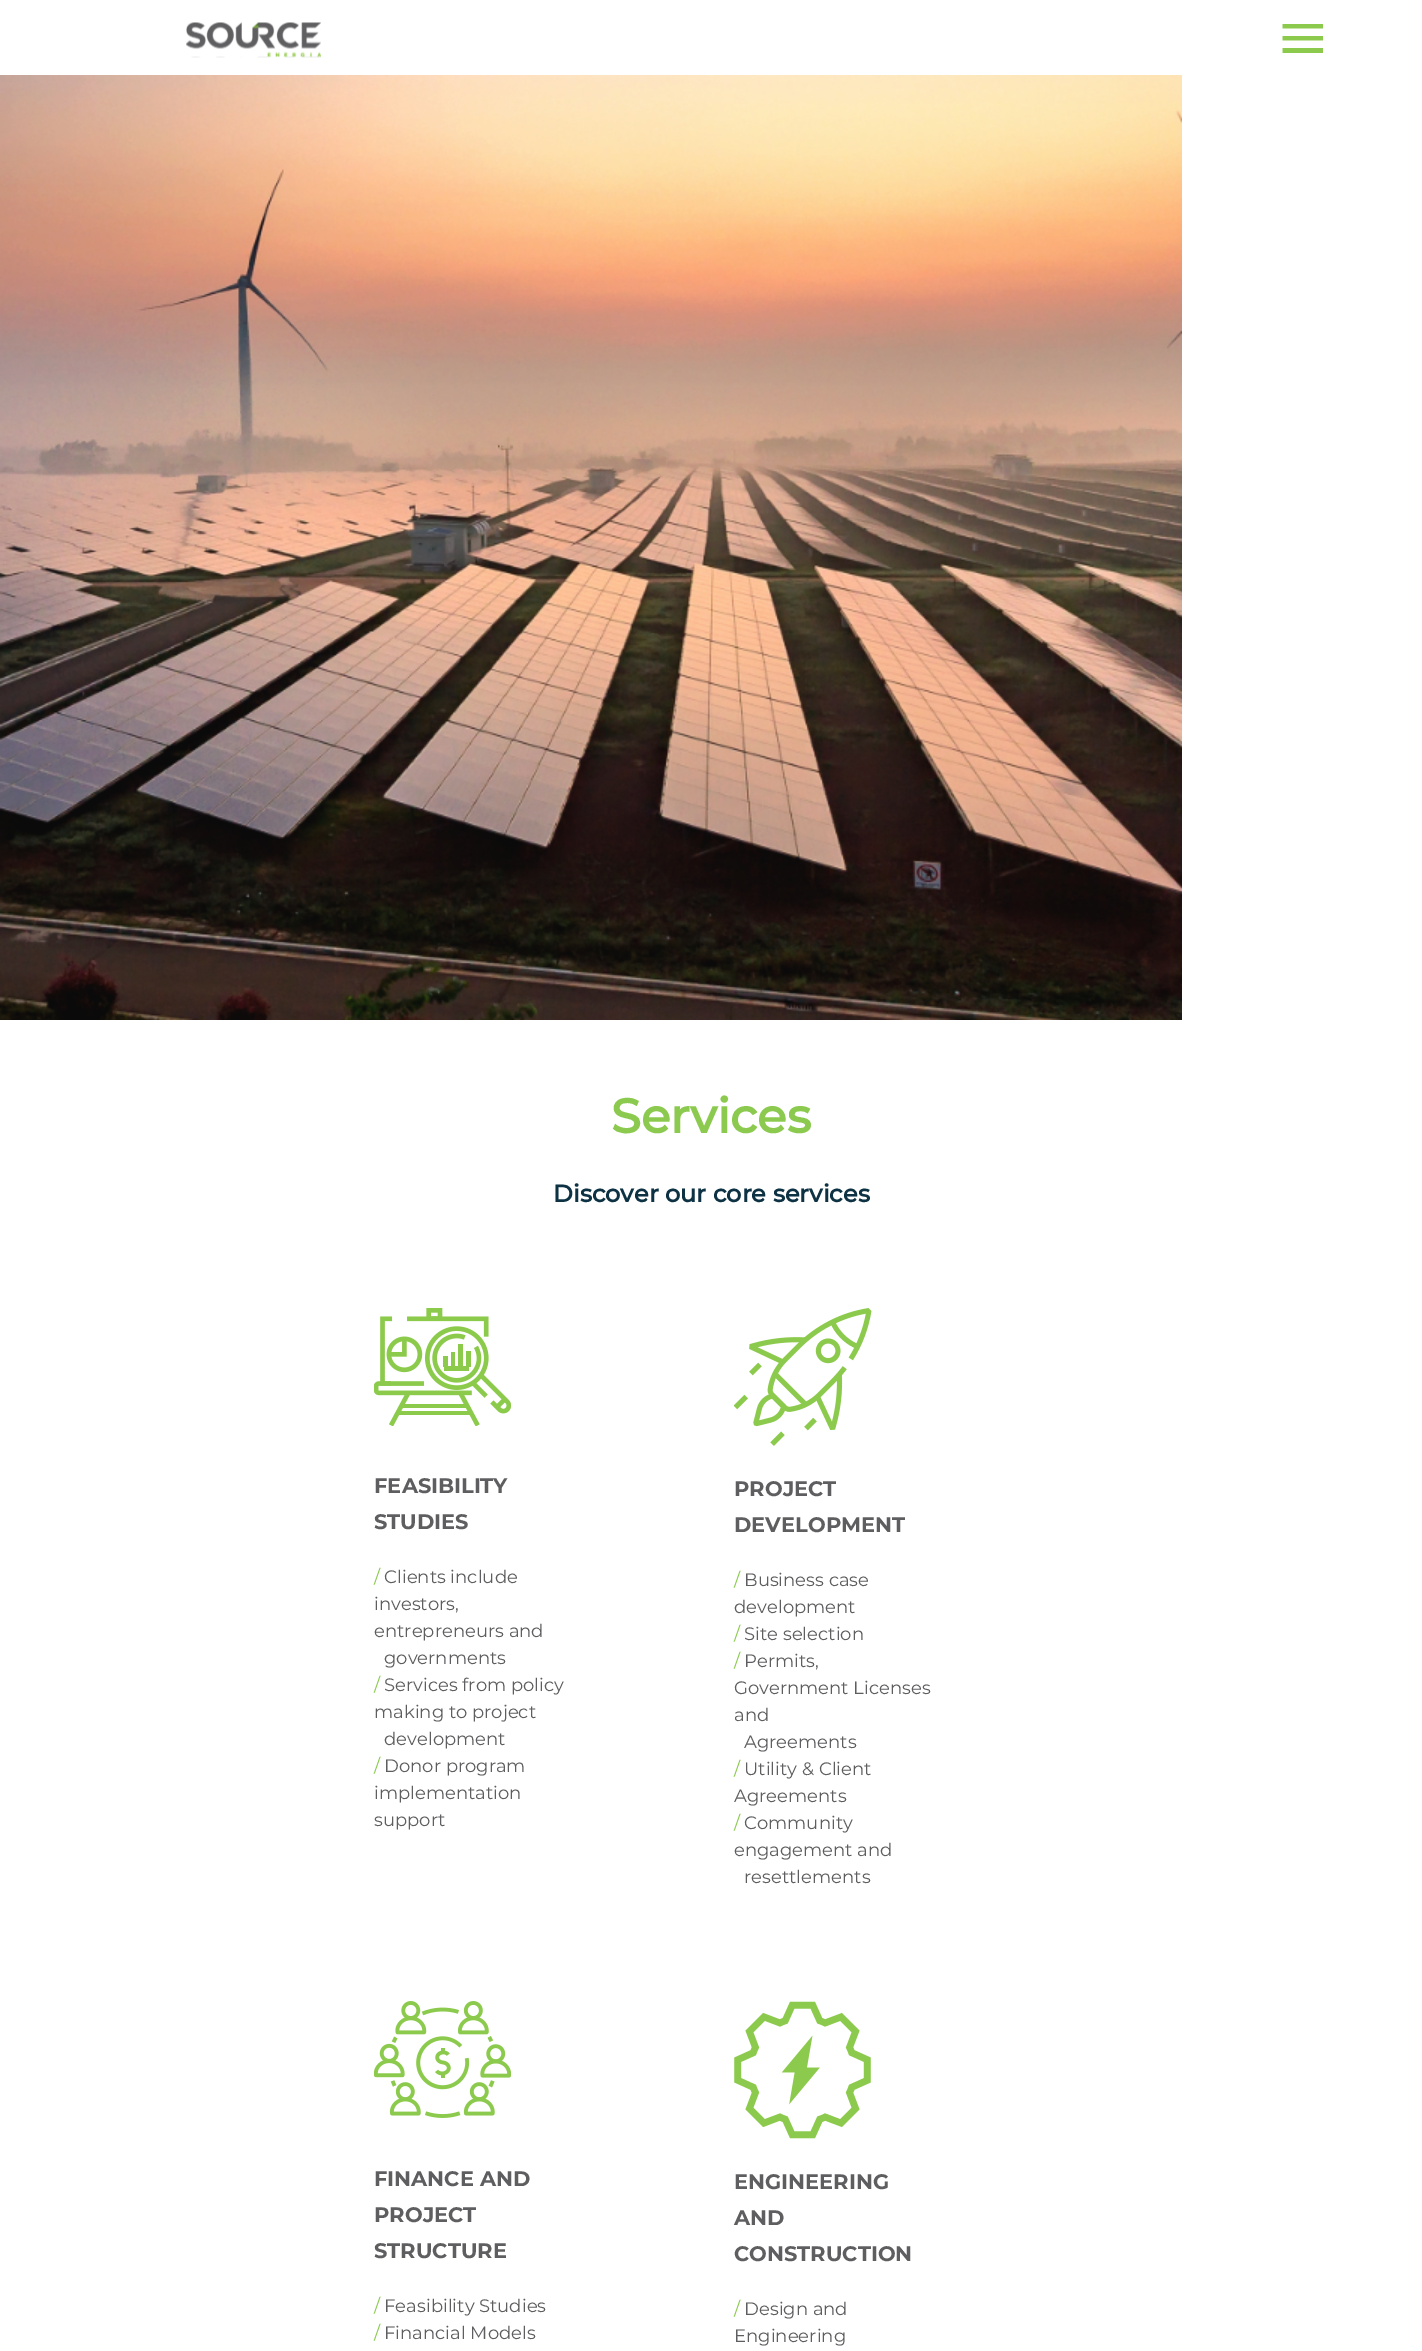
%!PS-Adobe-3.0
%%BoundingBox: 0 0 1422 2351
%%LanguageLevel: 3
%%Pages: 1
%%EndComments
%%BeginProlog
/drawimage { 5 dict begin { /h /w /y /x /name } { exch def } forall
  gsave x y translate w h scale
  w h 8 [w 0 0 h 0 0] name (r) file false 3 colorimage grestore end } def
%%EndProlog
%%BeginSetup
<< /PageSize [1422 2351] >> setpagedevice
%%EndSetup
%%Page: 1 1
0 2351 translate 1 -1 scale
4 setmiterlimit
1 setgray
0 0 1422 2351 rectfill
(images/1.raw) 186 22 135 36 drawimage
(images/2.raw) 1282 24 41 29 drawimage
(images/3.raw) 0 75 1182 945 drawimage
(images/4.raw) 374 1308 137 118 drawimage
(images/5.raw) 734 1308 138 138 drawimage
(images/6.raw) 374 2001 137 117 drawimage
(images/7.raw) 734 2001 137 138 drawimage
/Montserrat-Bold [48 0 0 -48 0 0] selectfont
0.545 0.792 0.306 setrgbcolor
611 1133 moveto (Services) show
/Montserrat-Bold [24 0 0 -24 0 0] selectfont
0.051 0.196 0.263 setrgbcolor
553 1202 moveto (Discover our core services) show
/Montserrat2-Bold [21 0 0 -21 0 0] selectfont
0.369 0.369 0.376 setrgbcolor
374 1493 moveto (FEASIBILITY) show
374 1529 moveto (STUDIES) show
/Montserrat-Regular [18 0 0 -18 0 0] selectfont
0.545 0.792 0.306 setrgbcolor
374 1583 moveto (/) show
0.369 0.369 0.376 setrgbcolor
384 1583 moveto (Clients include) show
374 1610 moveto (investors,) show
374 1637 moveto (entrepreneurs and) show
384 1664 moveto (governments) show
0.545 0.792 0.306 setrgbcolor
374 1691 moveto (/) show
0.369 0.369 0.376 setrgbcolor
384 1691 moveto (Services from policy) show
374 1718 moveto (making to project) show
384 1745 moveto (development) show
0.545 0.792 0.306 setrgbcolor
374 1772 moveto (/) show
0.369 0.369 0.376 setrgbcolor
384 1772 moveto (Donor program) show
374 1799 moveto (implementation) show
374 1826 moveto (support) show
/Montserrat2-Bold [21 0 0 -21 0 0] selectfont
734 1496 moveto (PROJECT) show
734 1532 moveto (DEVELOPMENT) show
/Montserrat-Regular [18 0 0 -18 0 0] selectfont
0.545 0.792 0.306 setrgbcolor
734 1586 moveto (/) show
0.369 0.369 0.376 setrgbcolor
744 1586 moveto (Business case) show
734 1613 moveto (development) show
0.545 0.792 0.306 setrgbcolor
734 1640 moveto (/) show
0.369 0.369 0.376 setrgbcolor
744 1640 moveto (Site selection) show
0.545 0.792 0.306 setrgbcolor
734 1667 moveto (/) show
0.369 0.369 0.376 setrgbcolor
744 1667 moveto (Permits,) show
734 1694 moveto (Government Licenses) show
734 1721 moveto (and) show
744 1748 moveto (Agreements) show
0.545 0.792 0.306 setrgbcolor
734 1775 moveto (/) show
0.369 0.369 0.376 setrgbcolor
744 1775 moveto (Utility & Client) show
734 1802 moveto (Agreements) show
0.545 0.792 0.306 setrgbcolor
734 1829 moveto (/) show
0.369 0.369 0.376 setrgbcolor
744 1829 moveto (Community) show
734 1856 moveto (engagement and) show
744 1883 moveto (resettlements) show
/Montserrat2-Bold [21 0 0 -21 0 0] selectfont
374 2186 moveto (FINANCE AND) show
374 2222 moveto (PROJECT) show
374 2258 moveto (STRUCTURE) show
/Montserrat-Regular [18 0 0 -18 0 0] selectfont
0.545 0.792 0.306 setrgbcolor
374 2312 moveto (/) show
0.369 0.369 0.376 setrgbcolor
384 2312 moveto (Feasibility Studies) show
0.545 0.792 0.306 setrgbcolor
374 2339 moveto (/) show
0.369 0.369 0.376 setrgbcolor
384 2339 moveto (Financial Models) show
/Montserrat2-Bold [21 0 0 -21 0 0] selectfont
734 2189 moveto (ENGINEERING) show
734 2225 moveto (AND) show
734 2261 moveto (CONSTRUCTION) show
/Montserrat-Regular [18 0 0 -18 0 0] selectfont
0.545 0.792 0.306 setrgbcolor
734 2315 moveto (/) show
0.369 0.369 0.376 setrgbcolor
744 2315 moveto (Design and) show
734 2342 moveto (Engineering) show
showpage
%%EOF
